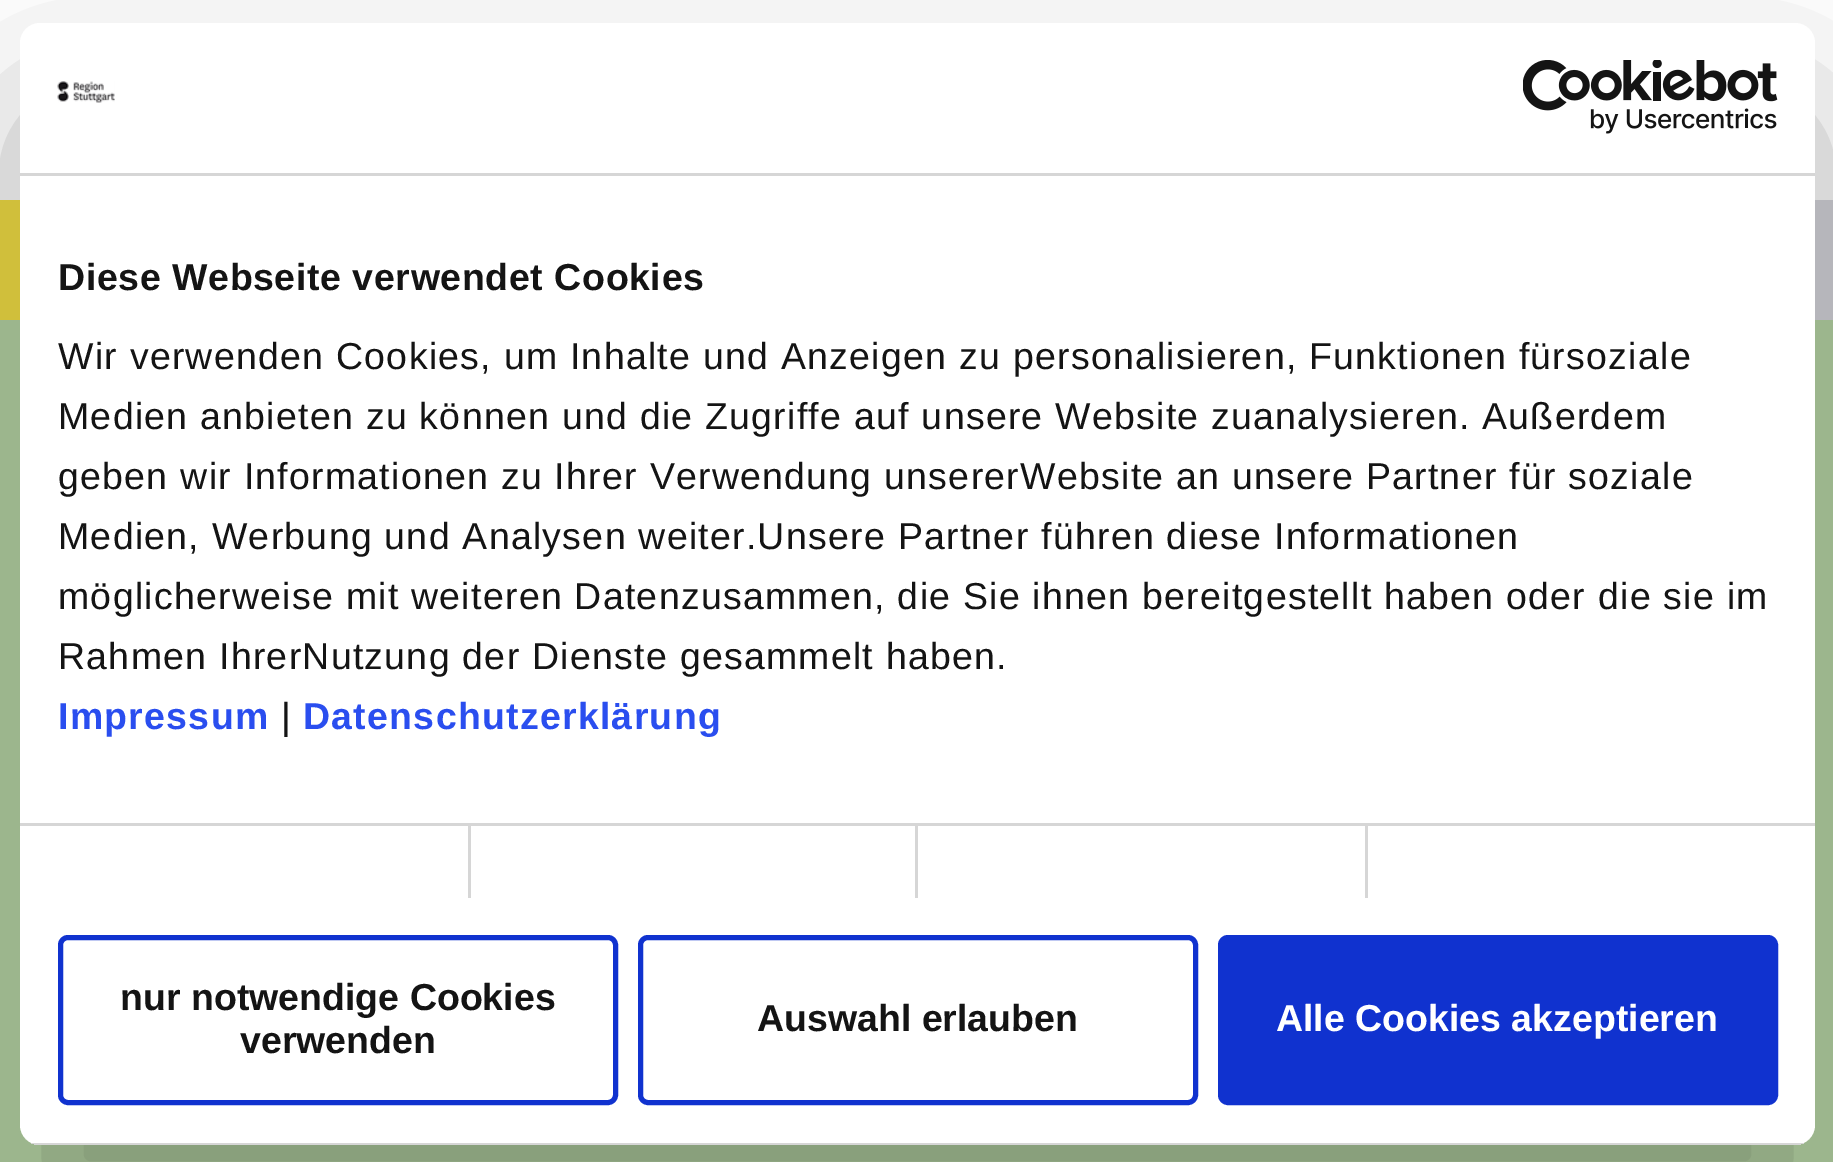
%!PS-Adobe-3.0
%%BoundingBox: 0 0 1833 1162
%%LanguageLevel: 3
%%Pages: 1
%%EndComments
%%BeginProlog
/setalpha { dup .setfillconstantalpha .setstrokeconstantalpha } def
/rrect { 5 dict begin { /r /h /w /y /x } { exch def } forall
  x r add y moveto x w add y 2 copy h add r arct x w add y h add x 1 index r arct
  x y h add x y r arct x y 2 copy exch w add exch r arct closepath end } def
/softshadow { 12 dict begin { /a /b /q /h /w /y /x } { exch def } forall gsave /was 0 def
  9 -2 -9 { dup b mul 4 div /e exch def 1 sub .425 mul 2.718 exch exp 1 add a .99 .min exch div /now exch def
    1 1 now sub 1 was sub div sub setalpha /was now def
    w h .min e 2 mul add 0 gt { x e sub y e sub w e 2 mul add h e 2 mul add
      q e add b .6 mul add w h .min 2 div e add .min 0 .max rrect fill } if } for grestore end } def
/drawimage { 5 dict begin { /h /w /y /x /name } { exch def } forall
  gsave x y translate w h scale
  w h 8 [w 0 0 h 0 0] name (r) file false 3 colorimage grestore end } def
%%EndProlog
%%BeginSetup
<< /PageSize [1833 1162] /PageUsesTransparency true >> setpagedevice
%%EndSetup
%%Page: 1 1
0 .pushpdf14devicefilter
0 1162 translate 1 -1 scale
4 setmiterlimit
1 setgray
0 0 1833 1162 rectfill
0.714 0.843 0.647 setrgbcolor
0 320 1833 842 rectfill
0.961 0.882 0.275 setrgbcolor
0 200 20 120 rectfill
0.843 0.843 0.863 setrgbcolor
1815 200 18 120 rectfill
gsave
newpath 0 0 moveto 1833 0 lineto 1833 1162 lineto 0 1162 lineto closepath 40 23 moveto 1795 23 lineto 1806 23 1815 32 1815 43 curveto 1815 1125 lineto 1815 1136 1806 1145 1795 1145 curveto 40 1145 lineto 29 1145 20 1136 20 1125 curveto 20 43 lineto 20 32 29 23 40 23 curveto closepath eoclip newpath
0 setgray
20 103 1795 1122 20 85 0.3 softshadow
grestore
1 setgray
20 23 1795 1122 20 rrect fill
0.839 setgray
20 173 1795 3 rectfill
(images/1.raw) 57 81 58 22 drawimage
(images/2.raw) 1523 60 255 74 drawimage
468 825 3 73 rectfill
915 825 3 73 rectfill
1365 825 3 73 rectfill
20 823 1795 3 rectfill
gsave
20 23 1795 1122 20 rrect clip newpath
31 1143 1773 2 rectfill
grestore
0.063 0.196 0.812 setrgbcolor
5 setlinewidth
60.5 937.5 555 165 7.5 rrect stroke
640.5 937.5 555 165 7.5 rrect stroke
1220.5 937.5 555 165 7.5 rrect gsave fill grestore
stroke
/LiberationSans-Bold [37.5 0 0 -37.5 0 0] selectfont
0.078 setgray
58 290 moveto 0.6 0 (Diese Webseite verwendet Cookies) ashow
/LiberationSans-Regular [37.5 0 0 -37.5 0 0] selectfont
58 369 moveto 1.25 0 (Wir verwenden Cookies, um Inhalte und Anzeigen zu personalisieren, Funktionen fürsoziale) ashow
58 429 moveto 1.25 0 (Medien anbieten zu können und die Zugriffe auf unsere Website zuanalysieren. Außerdem) ashow
58 489 moveto 1.25 0 (geben wir Informationen zu Ihrer Verwendung unsererWebsite an unsere Partner für soziale) ashow
58 549 moveto 1.25 0 (Medien, Werbung und Analysen weiter.Unsere Partner führen diese Informationen) ashow
58 609 moveto 1.25 0 (möglicherweise mit weiteren Datenzusammen, die Sie ihnen bereitgestellt haben oder die sie im) ashow
58 669 moveto 1.25 0 (Rahmen IhrerNutzung der Dienste gesammelt haben.) ashow
/LiberationSans-Bold [37.5 0 0 -37.5 0 0] selectfont
0.165 0.306 0.937 setrgbcolor
58 729 moveto 1.25 0 (Impressum) ashow
/LiberationSans-Regular [37.5 0 0 -37.5 0 0] selectfont
0.078 setgray
281 729 moveto 1.25 0 (|) ashow
/LiberationSans-Bold [37.5 0 0 -37.5 0 0] selectfont
0.165 0.306 0.937 setrgbcolor
303 729 moveto 1.25 0 (Datenschutzerklärung) ashow
0.078 setgray
120 1010 moveto (nur notwendige Cookies) show
240 1053 moveto (verwenden) show
757 1031 moveto (Auswahl erlauben) show
1 setgray
1276 1031 moveto (Alle Cookies akzeptieren) show
.poppdf14devicefilter showpage
%%EOF
